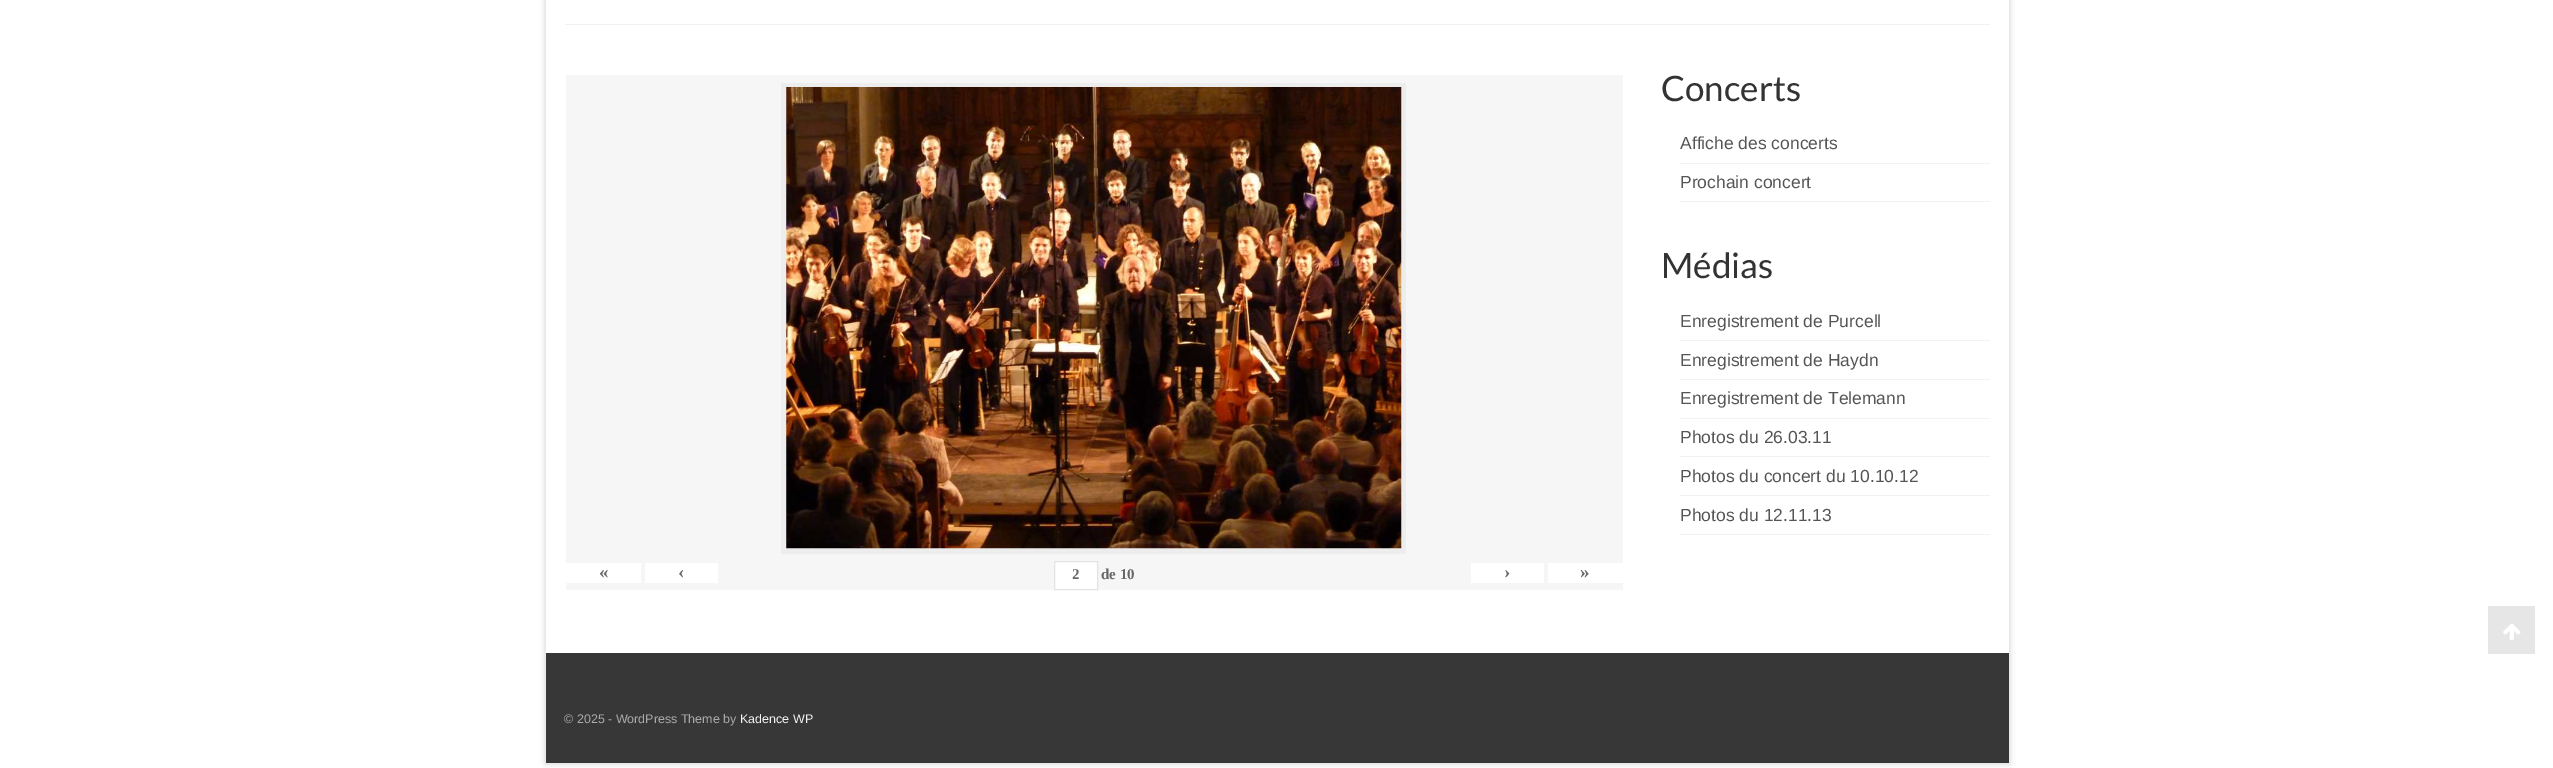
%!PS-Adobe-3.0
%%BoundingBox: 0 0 2553 768
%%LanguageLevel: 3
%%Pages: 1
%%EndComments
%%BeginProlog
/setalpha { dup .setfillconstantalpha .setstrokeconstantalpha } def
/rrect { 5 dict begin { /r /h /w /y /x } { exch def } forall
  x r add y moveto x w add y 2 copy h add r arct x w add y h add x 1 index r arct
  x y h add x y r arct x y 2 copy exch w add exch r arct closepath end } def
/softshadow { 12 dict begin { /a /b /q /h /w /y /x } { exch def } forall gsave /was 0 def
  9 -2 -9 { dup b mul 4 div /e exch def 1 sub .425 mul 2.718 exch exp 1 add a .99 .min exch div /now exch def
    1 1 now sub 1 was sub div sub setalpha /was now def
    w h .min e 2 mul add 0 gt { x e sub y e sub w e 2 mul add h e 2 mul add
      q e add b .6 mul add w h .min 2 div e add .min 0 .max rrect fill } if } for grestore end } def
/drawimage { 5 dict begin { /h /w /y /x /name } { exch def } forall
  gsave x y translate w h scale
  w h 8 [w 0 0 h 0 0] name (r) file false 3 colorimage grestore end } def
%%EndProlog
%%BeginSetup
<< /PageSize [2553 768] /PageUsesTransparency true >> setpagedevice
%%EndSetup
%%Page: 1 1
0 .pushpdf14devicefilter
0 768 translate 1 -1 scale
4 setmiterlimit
1 setgray
0 0 2553 768 rectfill
0 setgray
545 -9 1465 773 0 3 0.16 softshadow
1 setgray
546 0 1463 653 rectfill
0.949 setgray
565 24 1425 1 rectfill
1680 163 310 1 rectfill
1680 201 310 1 rectfill
1680 340 310 1 rectfill
1680 379 310 1 rectfill
1680 418 310 1 rectfill
1680 456 310 1 rectfill
1680 495 310 1 rectfill
1680 534 310 1 rectfill
0.965 setgray
566 75 1057 515 rectfill
0.929 setgray
781 83 625 471 rectfill
(images/1.raw) 786 87 616 462 drawimage
1 setgray
566 563 75 20 rectfill
645 563 73 20 rectfill
newpath 1054.5 561.5 moveto 1097.5 561.5 lineto 1097.5 589.5 lineto 1054.5 589.5 lineto closepath gsave fill grestore
0.89 setgray
stroke
1 setgray
1471 563 73 20 rectfill
1548 563 75 20 rectfill
0.216 setgray
546 653 1463 110 rectfill
0.902 setgray
2488 606 47 48 rectfill
(images/2.raw) 2503 623 18 17 drawimage
/Lato-Regular [35 0 0 -35 0 0] selectfont
0.2 setgray
1661 101 moveto (Concerts) show
/LiberationSans-Regular [17.5 0 0 -17.5 0 0] selectfont
0.333 setgray
1680 149 moveto (Affiche des concerts) show
1680 188 moveto (Prochain concert) show
/Lato-Regular [35 0 0 -35 0 0] selectfont
0.2 setgray
1661 278 moveto (Médias) show
/LiberationSans-Regular [17.5 0 0 -17.5 0 0] selectfont
0.333 setgray
1680 327 moveto (Enregistrement de Purcell) show
1680 366 moveto (Enregistrement de Haydn) show
1680 404 moveto (Enregistrement de Telemann) show
1680 443 moveto (Photos du 26.03.11) show
1680 482 moveto (Photos du concert du 10.10.12) show
1680 521 moveto (Photos du 12.11.13) show
/LiberationSerif-Bold [19 0 0 -19 0 0] selectfont
0.4 setgray
599 578 moveto («) show
678 578 moveto (‹) show
/LiberationSerif-Bold [15 0 0 -15 0 0] selectfont
1072 579 moveto (2) show
1101 579 moveto (de 10) show
/LiberationSerif-Bold [19 0 0 -19 0 0] selectfont
1504 578 moveto (›) show
1580 578 moveto (») show
/LiberationSans-Regular [12.5 0 0 -12.5 0 0] selectfont
0.667 setgray
564 723 moveto (© 2025 - WordPress Theme by) show
0.949 setgray
740 723 moveto (Kadence WP) show
.poppdf14devicefilter showpage
%%EOF
